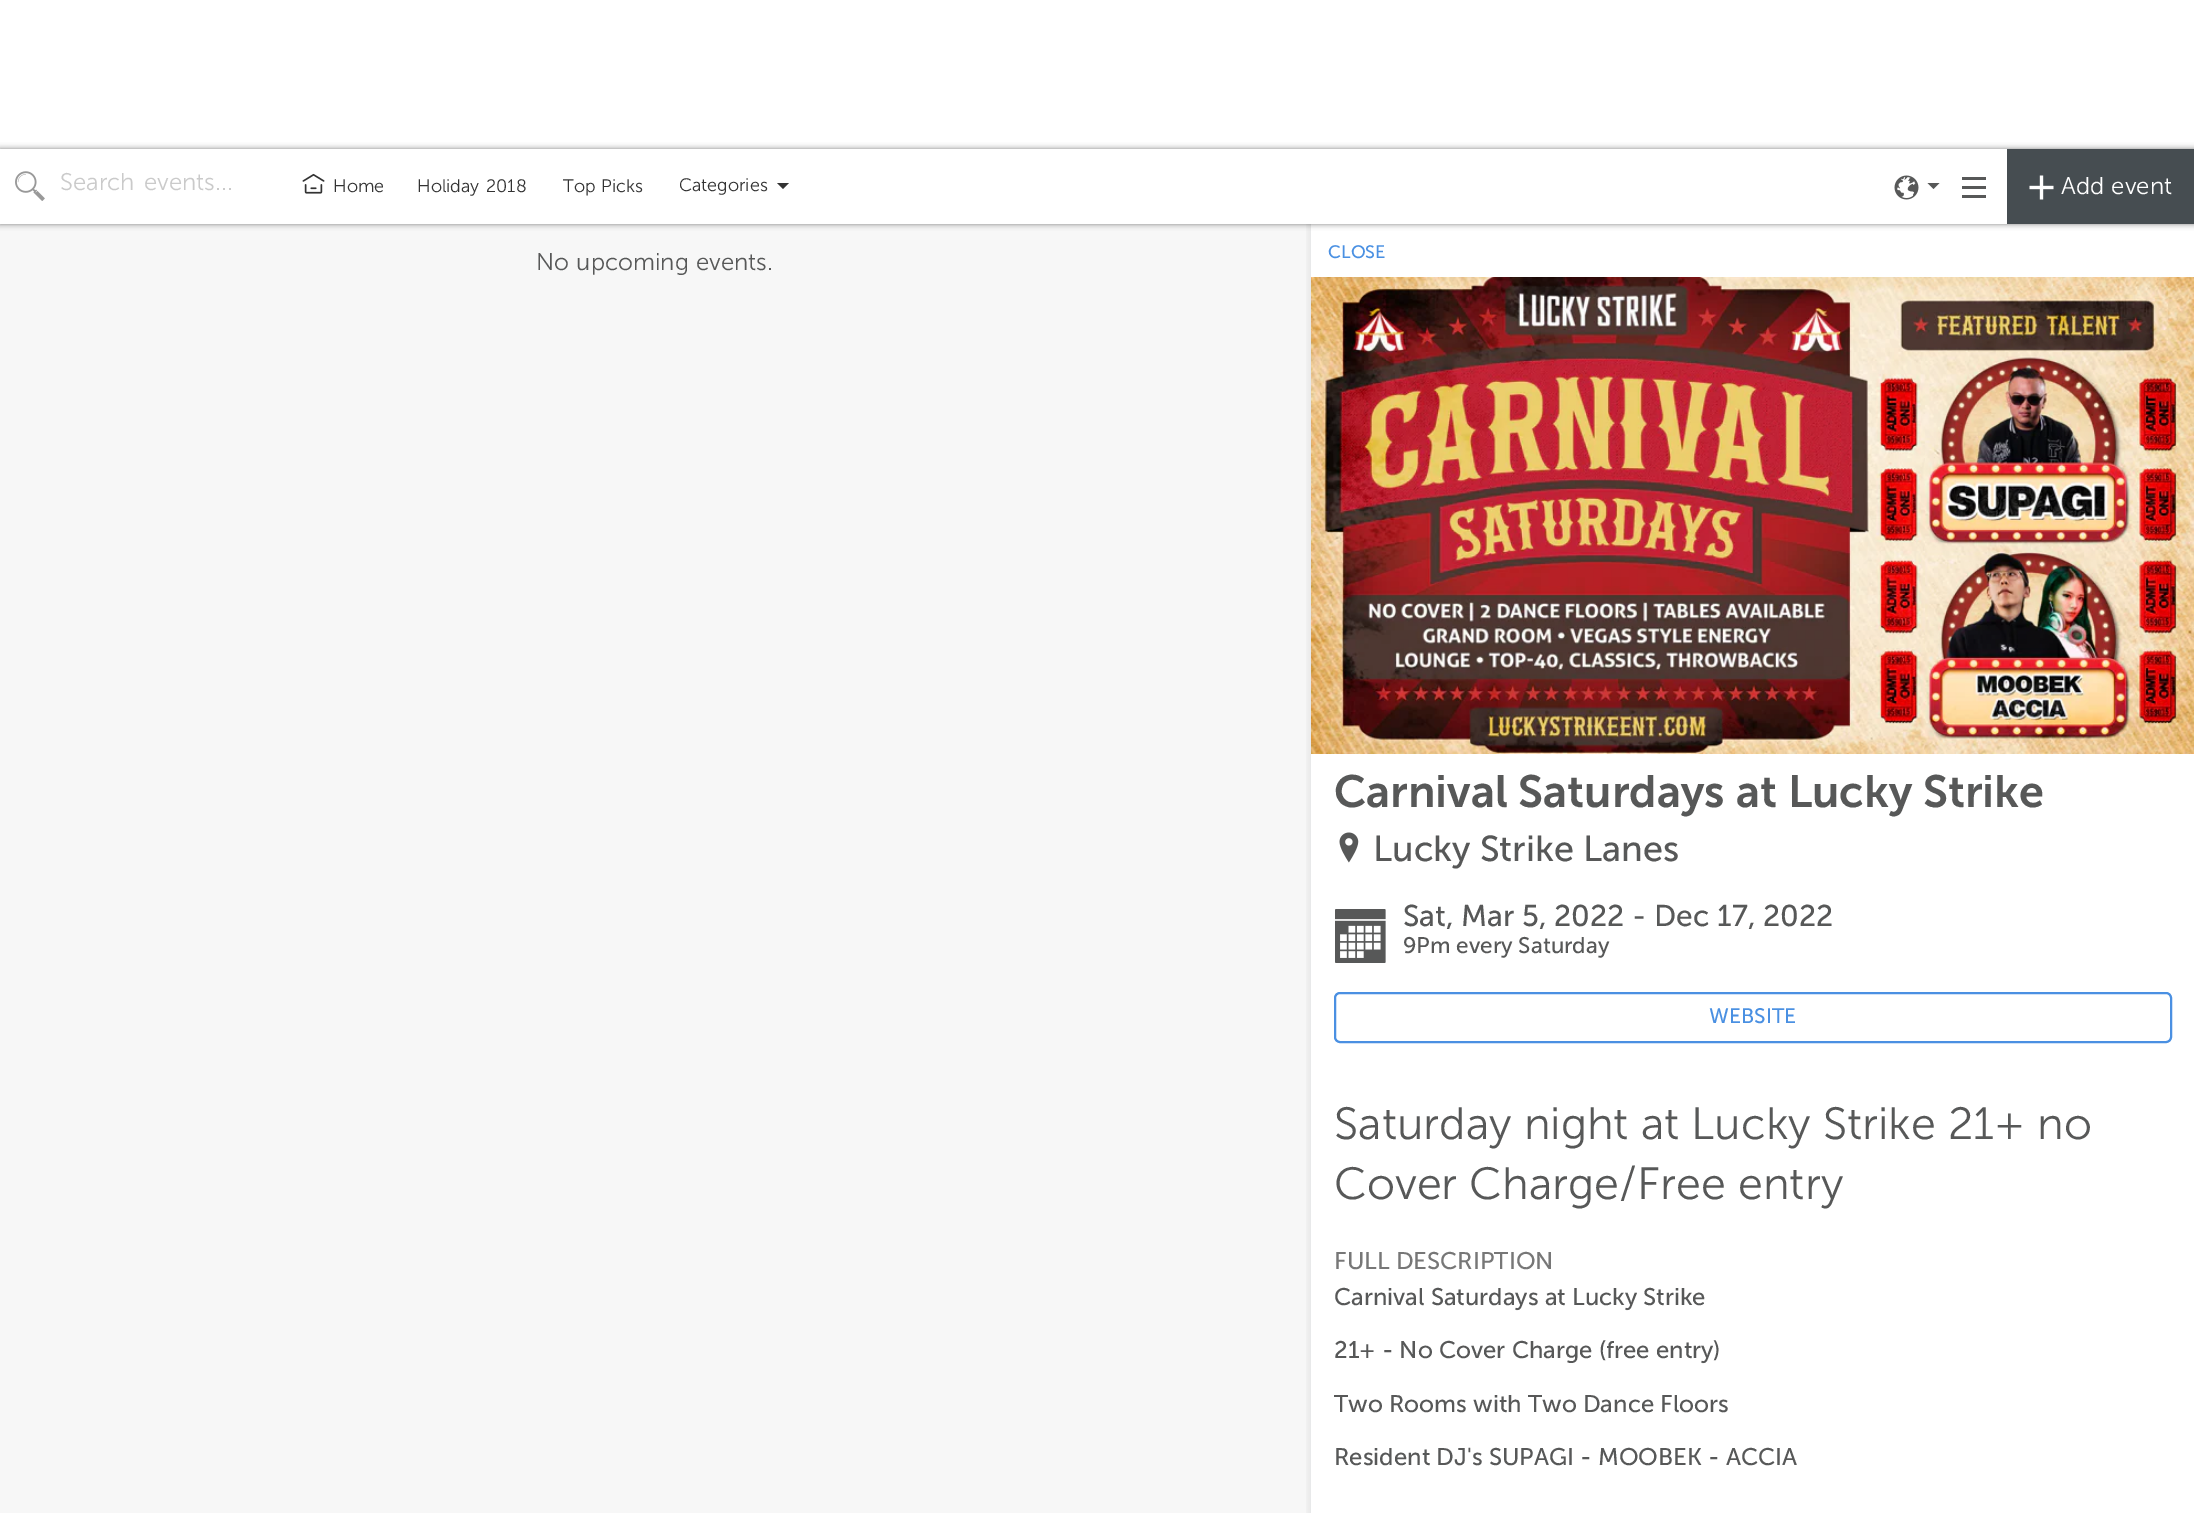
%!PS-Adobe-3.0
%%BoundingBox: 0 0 2194 1513
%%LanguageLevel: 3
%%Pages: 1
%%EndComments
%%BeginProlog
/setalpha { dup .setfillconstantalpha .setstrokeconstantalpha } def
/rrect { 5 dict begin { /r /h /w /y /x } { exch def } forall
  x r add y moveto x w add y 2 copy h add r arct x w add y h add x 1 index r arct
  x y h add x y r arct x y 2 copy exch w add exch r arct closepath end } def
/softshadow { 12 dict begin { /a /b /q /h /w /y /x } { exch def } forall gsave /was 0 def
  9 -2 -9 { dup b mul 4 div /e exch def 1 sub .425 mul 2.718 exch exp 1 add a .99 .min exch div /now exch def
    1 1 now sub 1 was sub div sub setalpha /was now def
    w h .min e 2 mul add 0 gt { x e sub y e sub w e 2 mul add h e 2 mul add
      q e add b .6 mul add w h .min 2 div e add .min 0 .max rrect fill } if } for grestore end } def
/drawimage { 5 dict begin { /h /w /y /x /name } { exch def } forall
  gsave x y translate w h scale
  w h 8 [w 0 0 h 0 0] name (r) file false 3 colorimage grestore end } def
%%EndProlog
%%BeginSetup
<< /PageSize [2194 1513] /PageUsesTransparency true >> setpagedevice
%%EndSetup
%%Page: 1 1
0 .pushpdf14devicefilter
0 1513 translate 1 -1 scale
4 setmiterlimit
1 setgray
0 0 2194 1513 rectfill
0.969 setgray
0 224 1310 1289 rectfill
gsave
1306 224 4 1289 rectclip
0 setgray
1307 222 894 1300 0 3 0.06 softshadow
grestore
0.91 0.914 0.918 setrgbcolor
1310 224 1 1289 rectfill
0 setgray
0 149 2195 75 0 3 0.5 softshadow
1 setgray
0 149 2007 75 rectfill
(images/1.raw) 15 171 30 30 drawimage
(images/2.raw) 302 173 23 21 drawimage
0.2 setgray
newpath 777 183 moveto 789 183 lineto 783 189 lineto closepath fill
(images/3.raw) 1894 175 25 25 drawimage
0.341 0.345 0.345 setrgbcolor
newpath 1927.5 183 moveto 1939.5 183 lineto 1933.5 189 lineto closepath fill
(images/4.raw) 1962 177 24 21 drawimage
0.275 0.302 0.318 setrgbcolor
2007 149 187 75 rectfill
(images/5.raw) 2029 175 25 25 drawimage
(images/6.raw) 1311 277 883 477 drawimage
(images/7.raw) 1339 832 20 31 drawimage
(images/8.raw) 1335 909 51 54 drawimage
0.29 0.565 0.886 setrgbcolor
2 setlinewidth
1335 993 836 49 5 rrect stroke
/MuseoSans-Light [24 0 0 -24 0 0] selectfont
0.792 setgray
60 190 moveto 3 0 32 (Search events...) widthshow
/MuseoSans-Light [18 0 0 -18 0 0] selectfont
0.2 setgray
333 192 moveto (Home) show
417 192 moveto 2 0 32 (Holiday 2018) widthshow
563 192 moveto 1 0 32 (Top Picks) widthshow
679 191 moveto (Categories) show
/MuseoSans-Light [24 0 0 -24 0 0] selectfont
1 setgray
2061 194 moveto 1 0 32 (Add event) widthshow
0.341 0.345 0.345 setrgbcolor
536 270 moveto 1 0 32 (No upcoming events.) widthshow
/MuseoSans-Regular [18 0 0 -18 0 0] selectfont
0.29 0.565 0.886 setrgbcolor
1328 258 moveto (CLOSE) show
/MuseoSans-SemiBold [45 0 0 -45 0 0] selectfont
0.341 0.345 0.345 setrgbcolor
1334 807 moveto (Carnival Saturdays at Lucky Strike) show
/MuseoSans-Regular [36 0 0 -36 0 0] selectfont
1373 861 moveto (Lucky Strike Lanes) show
/MuseoSans-Regular [30 0 0 -30 0 0] selectfont
1403 926 moveto (Sat, Mar 5, 2022 - Dec 17, 2022) show
/MuseoSans-Regular [22.5 0 0 -22.5 0 0] selectfont
1403 953 moveto (9Pm every Saturday) show
/MuseoSans-Regular [21 0 0 -21 0 0] selectfont
0.29 0.565 0.886 setrgbcolor
1709 1023 moveto (WEBSITE) show
/MuseoSans-Light [45 0 0 -45 0 0] selectfont
0.341 0.345 0.345 setrgbcolor
1334 1139 moveto (Saturday night at Lucky Strike 21+ no) show
1334 1199 moveto (Cover Charge/Free entry) show
/MuseoSans-Regular [24 0 0 -24 0 0] selectfont
0.467 setgray
1334 1269 moveto (FULL DESCRIPTION) show
0.341 0.345 0.345 setrgbcolor
1334 1305 moveto (Carnival Saturdays at Lucky Strike) show
1334 1358 moveto (21+ - No Cover Charge \(free entry\)) show
1334 1412 moveto (Two Rooms with Two Dance Floors) show
1334 1465 moveto (Resident DJ's SUPAGI - MOOBEK - ACCIA) show
.poppdf14devicefilter showpage
%%EOF
